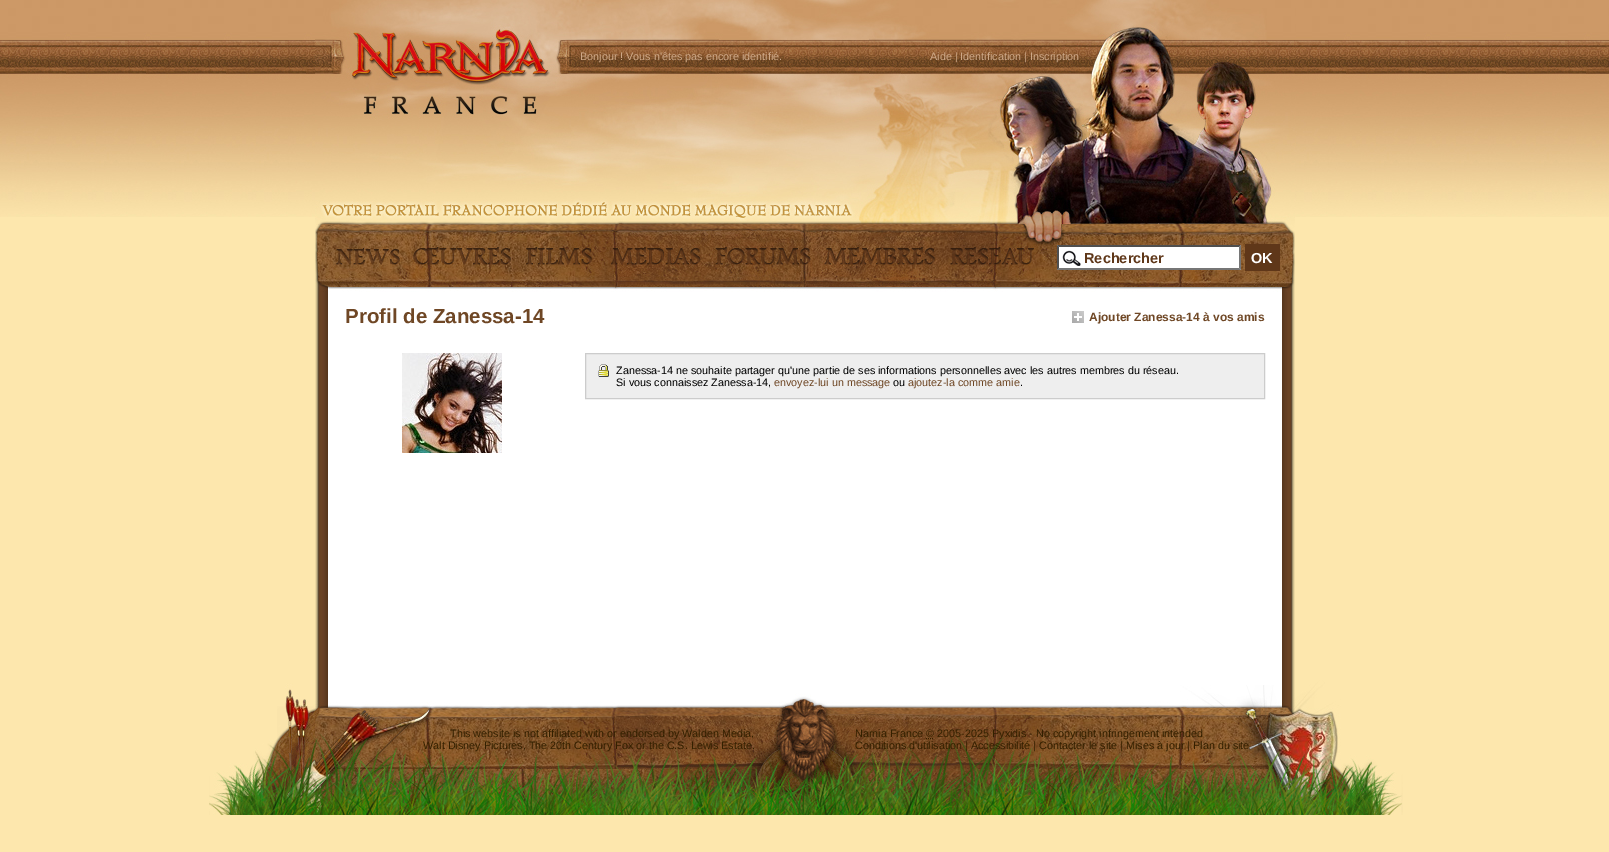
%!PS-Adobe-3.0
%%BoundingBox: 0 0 1609 852
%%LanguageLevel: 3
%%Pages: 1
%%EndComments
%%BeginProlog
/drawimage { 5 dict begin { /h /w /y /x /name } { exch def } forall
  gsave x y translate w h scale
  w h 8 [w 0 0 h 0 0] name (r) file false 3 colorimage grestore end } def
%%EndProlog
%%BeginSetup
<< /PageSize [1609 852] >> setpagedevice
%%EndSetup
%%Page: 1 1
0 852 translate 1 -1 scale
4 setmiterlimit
0.992 0.906 0.678 setrgbcolor
0 0 1609 852 rectfill
(images/1.raw) 0 0 1609 217 drawimage
(images/2.raw) 209 675 1194 140 drawimage
(images/3.raw) 315 292 980 393 drawimage
(images/4.raw) 315 0 980 230 drawimage
(images/5.raw) 315 230 980 62 drawimage
(images/6.raw) 336 248 64 17 drawimage
(images/7.raw) 413 247 98 18 drawimage
(images/8.raw) 526 247 66 18 drawimage
(images/9.raw) 611 247 90 18 drawimage
(images/10.raw) 715 247 96 18 drawimage
(images/11.raw) 824 247 111 18 drawimage
(images/12.raw) 950 247 84 18 drawimage
1 setgray
1057 245 184 25 rectfill
(images/13.raw) 1062 250 19 16 drawimage
0.31 setgray
newpath 1057 245 moveto 1241 245 lineto 1239 247 lineto 1059 247 lineto closepath fill
0.463 setgray
newpath 1241 245 moveto 1241 270 lineto 1239 268 lineto 1239 247 lineto closepath fill
newpath 1241 270 moveto 1057 270 lineto 1059 268 lineto 1239 268 lineto closepath fill
0.31 setgray
newpath 1057 270 moveto 1057 245 lineto 1059 247 lineto 1059 268 lineto closepath fill
0.373 0.216 0.098 setrgbcolor
1245 244 35 27 rectfill
(images/14.raw) 1072 311 12 12 drawimage
(images/15.raw) 402 353 100 100 drawimage
0.933 setgray
586 354 678 44 rectfill
(images/16.raw) 598 364 11 13 drawimage
0.8 setgray
585.5 353.5 679 45 rectstroke
(images/17.raw) 315 685 980 130 drawimage
0.2 0.125 0 setrgbcolor
[1 1] 0 setdash
newpath 926 738.5 moveto 934 738.5 lineto stroke
/LiberationSans-Regular [10.8 0 0 -10.8 0 0] selectfont
0.808 0.663 0.537 setrgbcolor
580 60 moveto (Bonjour ! Vous n'êtes pas encore identifié.) show
930 60 moveto (Aide | Identification | Inscription) show
/LiberationSans-Bold [14.5 0 0 -14.5 0 0] selectfont
0.373 0.216 0.098 setrgbcolor
1084 263 moveto (Rechercher) show
1 setgray
1251 263 moveto (OK) show
/LiberationSans-Bold [20.5 0 0 -20.5 0 0] selectfont
0.435 0.278 0.145 setrgbcolor
345 323 moveto (Profil de Zanessa-14) show
/LiberationSans-Bold [12 0 0 -12 0 0] selectfont
1089 321 moveto (Ajouter Zanessa-14 à vos amis) show
/LiberationSans-Regular [10.8 0 0 -10.8 0 0] selectfont
0 setgray
616 374 moveto (Zanessa-14 ne souhaite partager qu'une partie de ses informations personnelles avec les autres membres du réseau.) show
616 386 moveto (Si vous connaissez Zanessa-14,) show
0.435 0.278 0.145 setrgbcolor
774 386 moveto (envoyez-lui un message) show
0 setgray
893 386 moveto (ou) show
0.435 0.278 0.145 setrgbcolor
908 386 moveto (ajoutez-la comme amie) show
0 setgray
1020 386 moveto (.) show
0.2 0.125 0 setrgbcolor
450 737 moveto (This website is not affiliated with or endorsed by Walden Media,) show
423 749 moveto (Walt Disney Pictures, The 20th Century Fox or the C.S. Lewis Estate.) show
855 737 moveto (Narnia France © 2005-2025 Pyxidis - No copyright infringement intended) show
855 749 moveto (Conditions d'utilisation | Accessibilité | Contacter le site | Mises à jour | Plan du site) show
showpage
%%EOF
